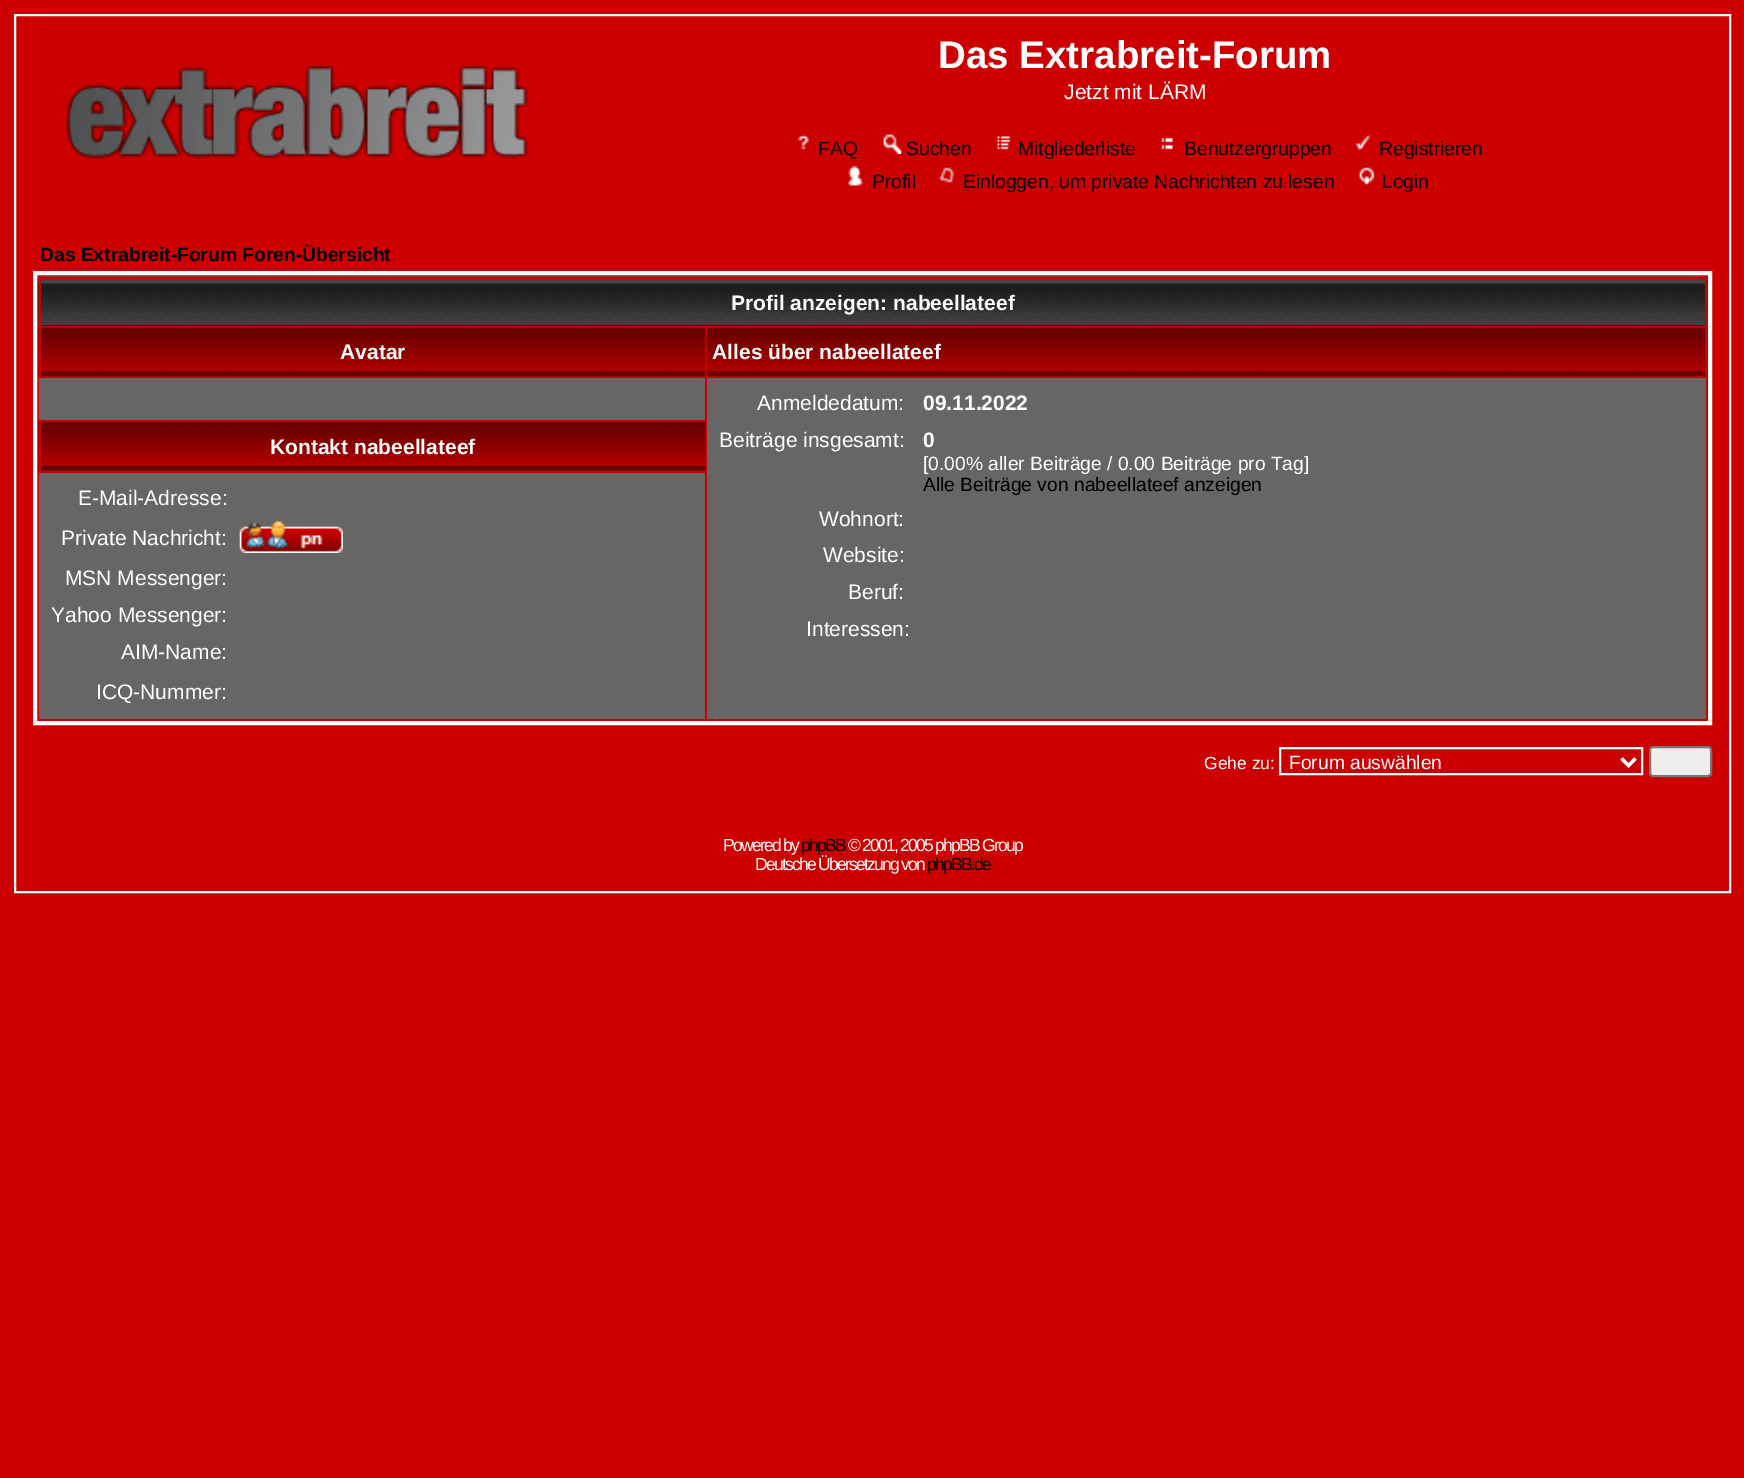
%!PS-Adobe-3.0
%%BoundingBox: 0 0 1744 1478
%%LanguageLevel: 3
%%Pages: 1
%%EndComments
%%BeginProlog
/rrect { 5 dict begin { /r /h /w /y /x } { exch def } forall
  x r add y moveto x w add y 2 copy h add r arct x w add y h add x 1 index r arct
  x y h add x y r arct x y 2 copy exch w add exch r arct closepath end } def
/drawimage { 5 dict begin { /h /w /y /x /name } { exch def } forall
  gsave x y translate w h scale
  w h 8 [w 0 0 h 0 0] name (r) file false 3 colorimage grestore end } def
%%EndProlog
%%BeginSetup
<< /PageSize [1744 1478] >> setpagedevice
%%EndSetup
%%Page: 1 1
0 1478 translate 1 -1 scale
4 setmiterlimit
0.8 0 0 setrgbcolor
0 0 1744 1478 rectfill
1 setgray
2 setlinewidth
15 15 1715 877 rectstroke
(images/1.raw) 65 64 464 96 drawimage
(images/2.raw) 797 134 12 16 drawimage
(images/3.raw) 883 134 19 20 drawimage
(images/4.raw) 997 136 14 14 drawimage
(images/5.raw) 1161 137 12 13 drawimage
(images/6.raw) 1355 134 16 17 drawimage
(images/7.raw) 848 165 16 21 drawimage
(images/8.raw) 939 167 16 16 drawimage
(images/9.raw) 1359 167 16 18 drawimage
4 setlinewidth
35 273 1675 450 rectstroke
0 setgray
41 325 1664 1 rectfill
(images/10.raw) 38 276 1669 50 drawimage
0.8 0 0 setrgbcolor
39 277 1667 2 rectfill
1705 277 2 49 rectfill
39 277 2 49 rectfill
(images/11.raw) 38 327 668 50 drawimage
39 327 2 49 rectfill
(images/12.raw) 707 327 1000 50 drawimage
1705 327 2 49 rectfill
(images/13.raw) 38 421 668 50 drawimage
39 422 2 49 rectfill
0.4 setgray
39 378 666 42 rectfill
707 378 999 341 rectfill
39 473 666 246 rectfill
(images/14.raw) 239 521 104 32 drawimage
1 setgray
2 setlinewidth
1280 748 362 26 rectstroke
3.5 setlinewidth
newpath 1621.5 758.5 moveto 1628.5 765.5 lineto 1635.5 758.5 lineto stroke
0.937 setgray
1650 747 61 29 3 rrect gsave fill grestore
0.463 setgray
2 setlinewidth
stroke
/LiberationSans-Bold [38.5 0 0 -38.5 0 0] selectfont
1 setgray
938 68 moveto (Das Extrabreit-Forum) show
/LiberationSans-Regular [21 0 0 -21 0 0] selectfont
1064 99 moveto (Jetzt mit LÄRM) show
/LiberationSans-Regular [19.25 0 0 -19.25 0 0] selectfont
0 setgray
818 155 moveto (FAQ) show
906 155 moveto (Suchen) show
1018 155 moveto (Mitgliederliste) show
1184 155 moveto (Benutzergruppen) show
1379 155 moveto (Registrieren) show
872 188 moveto (Profil) show
963 188 moveto (Einloggen, um private Nachrichten zu lesen) show
1382 188 moveto (Login) show
/LiberationSans-Bold [19.25 0 0 -19.25 0 0] selectfont
40 261 moveto (Das Extrabreit-Forum Foren-Übersicht) show
/LiberationSans-Bold [21 0 0 -21 0 0] selectfont
1 setgray
731 310 moveto (Profil anzeigen: nabeellateef) show
340 359 moveto (Avatar) show
712 359 moveto (Alles über nabeellateef) show
270 454 moveto (Kontakt nabeellateef) show
/LiberationSans-Regular [21 0 0 -21 0 0] selectfont
757 410 moveto (Anmeldedatum:) show
/LiberationSans-Bold [21 0 0 -21 0 0] selectfont
923 410 moveto (09.11.2022) show
/LiberationSans-Regular [21 0 0 -21 0 0] selectfont
719 447 moveto (Beiträge insgesamt:) show
/LiberationSans-Bold [21 0 0 -21 0 0] selectfont
923 447 moveto (0) show
/LiberationSans-Regular [19.25 0 0 -19.25 0 0] selectfont
923 470 moveto ([0.00% aller Beiträge / 0.00 Beiträge pro Tag]) show
0 setgray
923 491 moveto (Alle Beiträge von nabeellateef anzeigen) show
/LiberationSans-Regular [21 0 0 -21 0 0] selectfont
1 setgray
819 526 moveto (Wohnort:) show
823 562 moveto (Website:) show
848 599 moveto (Beruf:) show
806 636 moveto (Interessen:) show
78 505 moveto (E-Mail-Adresse:) show
61 545 moveto (Private Nachricht:) show
65 585 moveto (MSN Messenger:) show
51 622 moveto (Yahoo Messenger:) show
121 659 moveto (AIM-Name:) show
96 699 moveto (ICQ-Nummer:) show
/LiberationSans-Regular [17.5 0 0 -17.5 0 0] selectfont
1204 769 moveto (Gehe zu:) show
/LiberationSans-Regular [19.25 0 0 -19.25 0 0] selectfont
1289 769 moveto (Forum auswählen) show
/LiberationSans-Regular [17.5 0 0 -17.5 0 0] selectfont
723 851 moveto -1.75 0 (Powered by) ashow
0 setgray
801 851 moveto -1.75 0 (phpBB) ashow
1 setgray
848 851 moveto -1.75 0 (© 2001, 2005 phpBB Group) ashow
755 870 moveto -1.75 0 (Deutsche Übersetzung von) ashow
0 setgray
927 870 moveto -1.75 0 (phpBB.de) ashow
showpage
%%EOF
